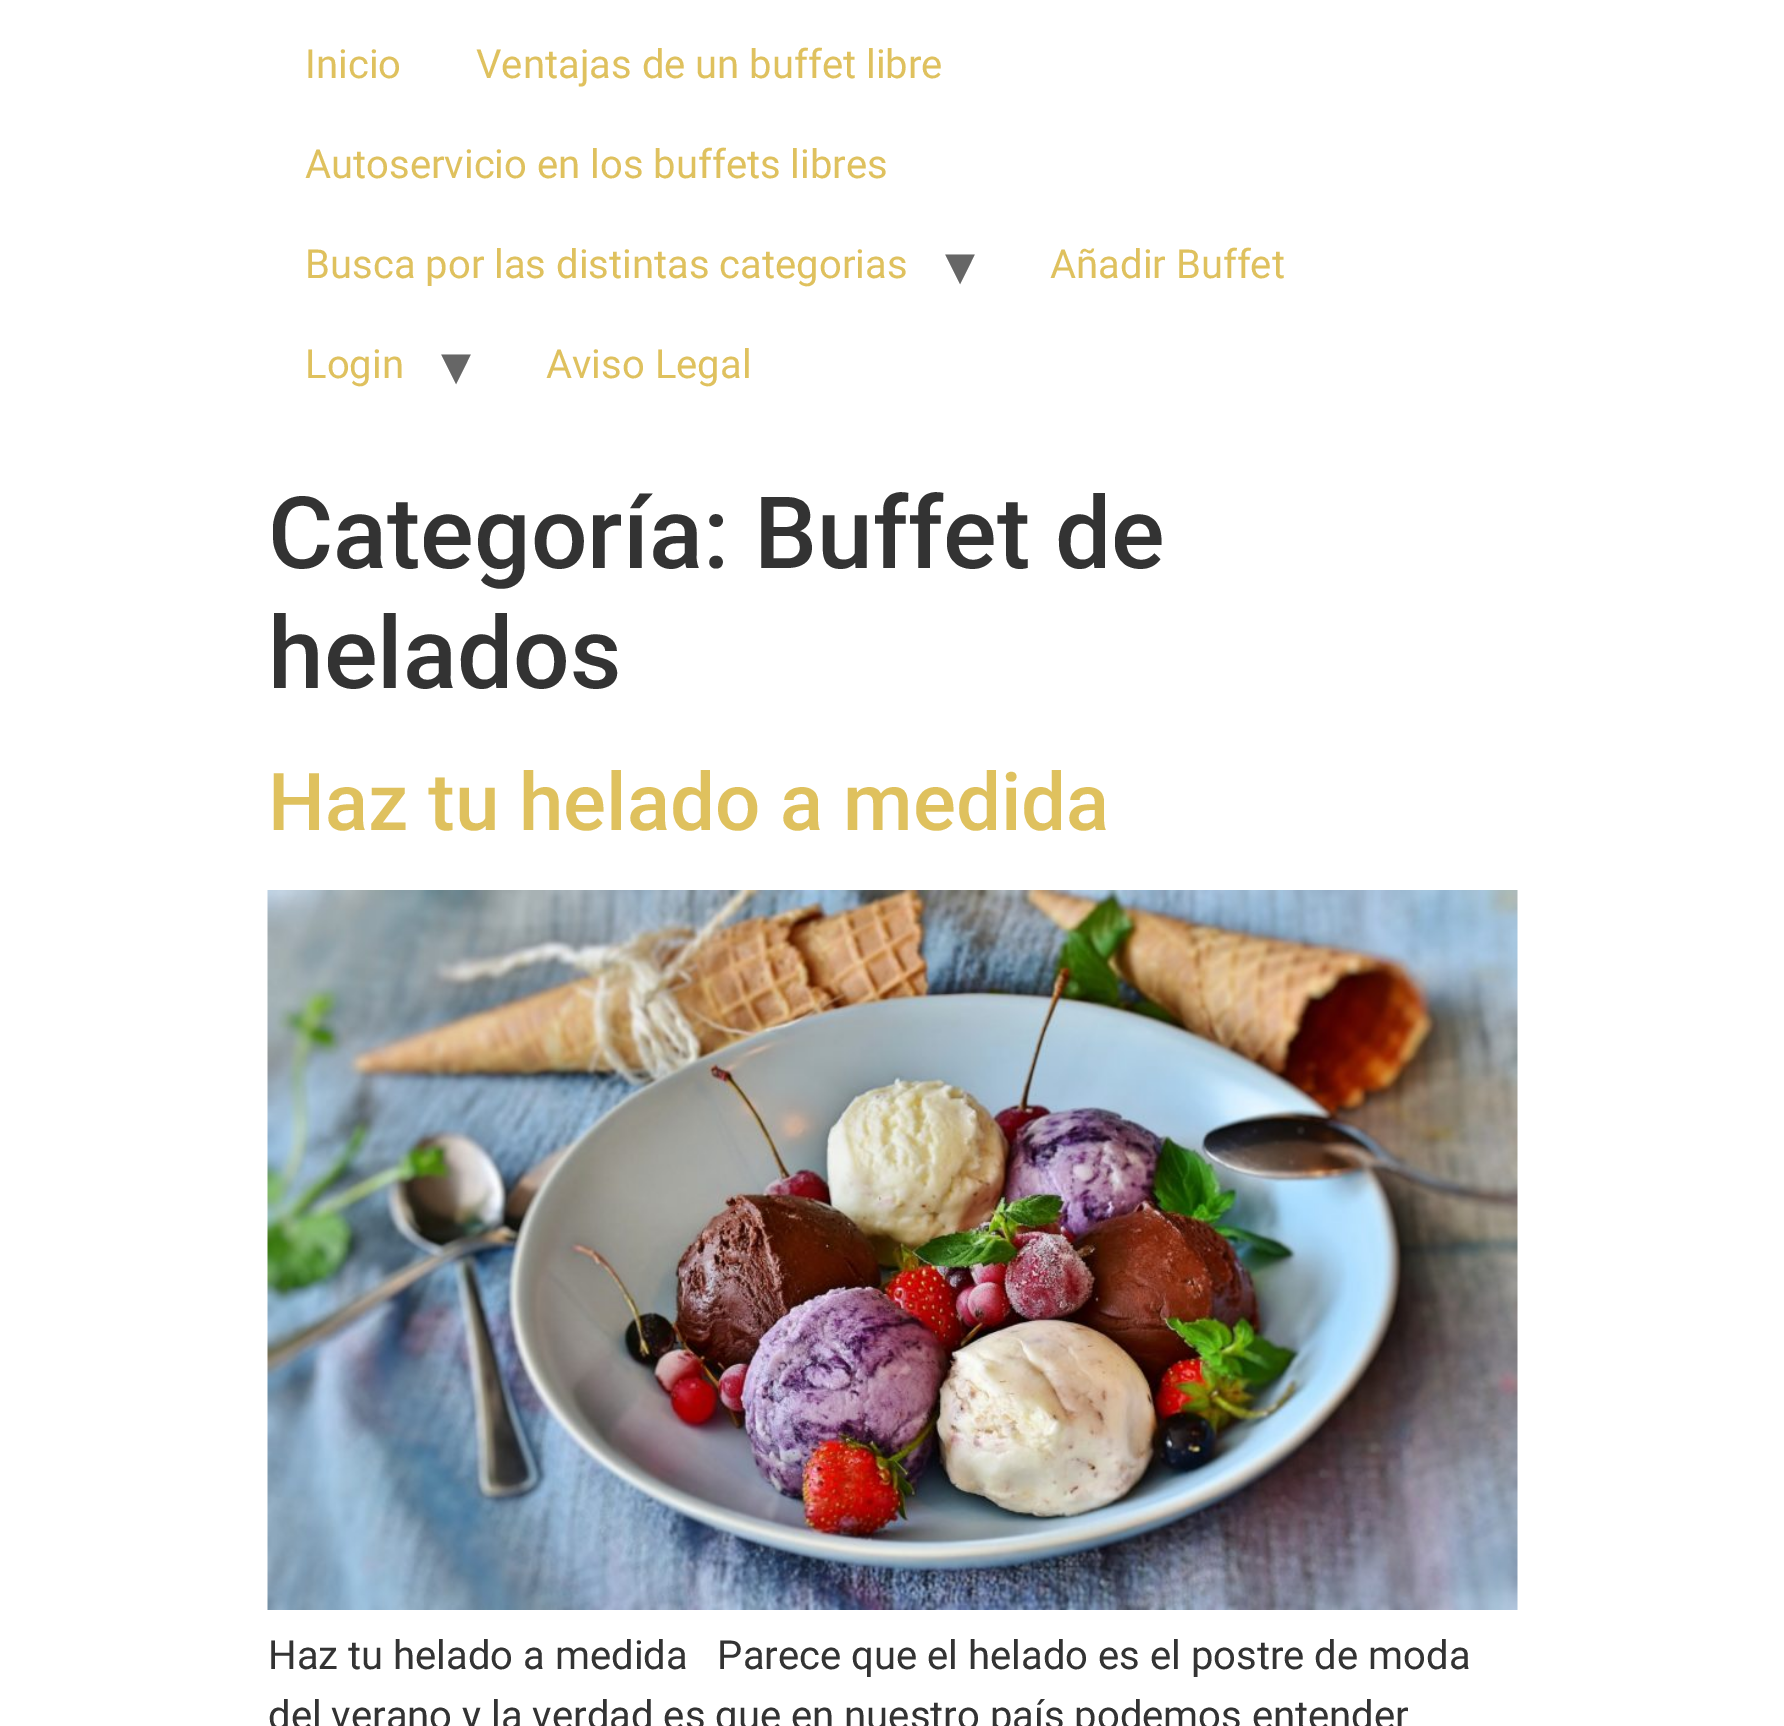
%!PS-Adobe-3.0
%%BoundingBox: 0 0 1784 1726
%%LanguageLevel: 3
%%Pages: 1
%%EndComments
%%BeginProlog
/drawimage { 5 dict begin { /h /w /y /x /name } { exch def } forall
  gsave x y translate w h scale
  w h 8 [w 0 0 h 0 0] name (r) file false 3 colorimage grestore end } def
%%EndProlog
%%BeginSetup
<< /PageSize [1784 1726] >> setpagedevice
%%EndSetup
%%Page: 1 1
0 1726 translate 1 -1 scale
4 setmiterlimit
1 setgray
0 0 1784 1726 rectfill
(images/1.raw) 267 890 1251 720 drawimage
/Roboto-Regular [40 0 0 -40 0 0] selectfont
0.875 0.757 0.369 setrgbcolor
305 78 moveto (Inicio) show
476 78 moveto (Ventajas de un buffet libre) show
305 178 moveto (Autoservicio en los buffets libres) show
305 278 moveto (Busca por las distintas categorias) show
/DejaVuSans-Regular [60 0 0 -60 0 0] selectfont
0.4 setgray
945 285 moveto (▾) show
/Roboto-Regular [40 0 0 -40 0 0] selectfont
0.875 0.757 0.369 setrgbcolor
1050 278 moveto (Añadir Buffet) show
305 378 moveto (Login) show
/DejaVuSans-Regular [60 0 0 -60 0 0] selectfont
0.4 setgray
441 385 moveto (▾) show
/Roboto-Regular [40 0 0 -40 0 0] selectfont
0.875 0.757 0.369 setrgbcolor
546 378 moveto (Aviso Legal) show
/Roboto-Medium [100 0 0 -100 0 0] selectfont
0.2 setgray
268 568 moveto (Categoría: Buffet de) show
268 688 moveto (helados) show
/Roboto-Medium [80 0 0 -80 0 0] selectfont
0.875 0.757 0.369 setrgbcolor
268 830 moveto (Haz tu helado a medida) show
/Roboto-Regular [40 0 0 -40 0 0] selectfont
0.2 setgray
268 1669 moveto (Haz tu helado a medida   Parece que el helado es el postre de moda) show
268 1729 moveto (del verano y la verdad es que en nuestro país podemos entender) show
showpage
%%EOF
